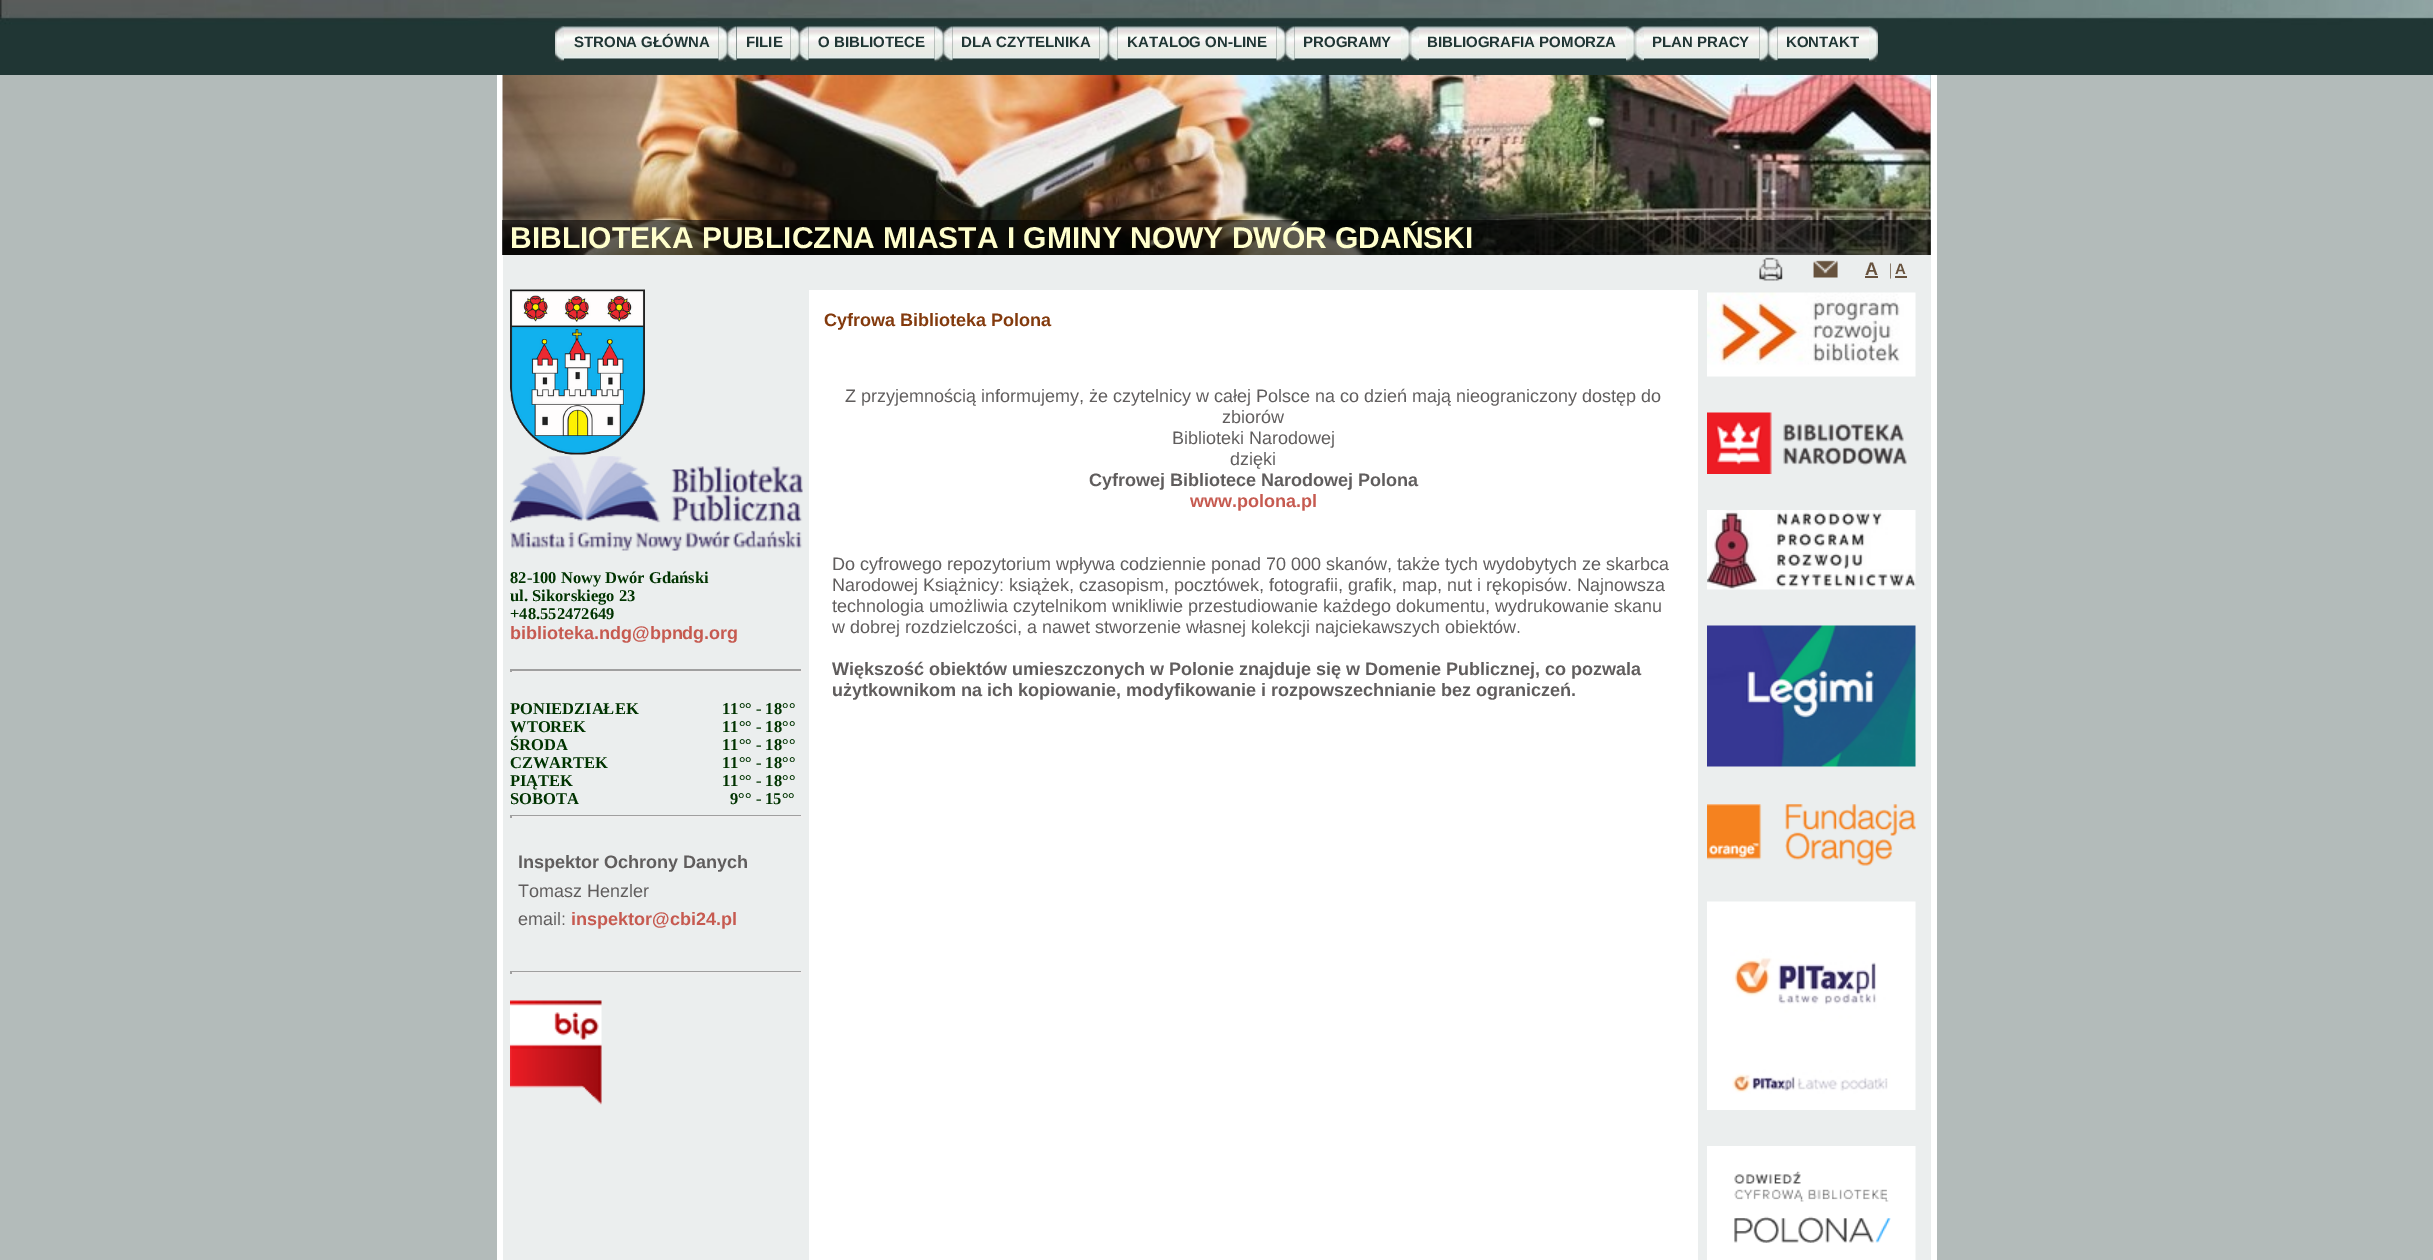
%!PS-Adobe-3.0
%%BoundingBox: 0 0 2433 1260
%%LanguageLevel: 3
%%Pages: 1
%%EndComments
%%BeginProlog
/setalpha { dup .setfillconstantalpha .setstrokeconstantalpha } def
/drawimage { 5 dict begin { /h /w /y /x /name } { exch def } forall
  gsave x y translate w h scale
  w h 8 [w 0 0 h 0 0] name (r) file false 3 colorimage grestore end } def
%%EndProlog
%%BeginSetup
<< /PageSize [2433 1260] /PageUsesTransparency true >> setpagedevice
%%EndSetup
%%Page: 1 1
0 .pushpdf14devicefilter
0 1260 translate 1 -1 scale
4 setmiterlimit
0.702 0.733 0.729 setrgbcolor
0 0 2433 1260 rectfill
(images/1.raw) 0 0 2433 75 drawimage
(images/2.raw) 555 26 9 36 drawimage
(images/3.raw) 564 26 155 33 drawimage
(images/4.raw) 718 26 10 36 drawimage
(images/5.raw) 727 26 10 36 drawimage
(images/6.raw) 737 26 54 33 drawimage
(images/7.raw) 790 26 10 36 drawimage
(images/5.raw) 799 26 10 36 drawimage
(images/8.raw) 808 26 127 33 drawimage
(images/7.raw) 934 26 10 36 drawimage
(images/5.raw) 943 26 10 36 drawimage
(images/9.raw) 952 26 148 33 drawimage
(images/10.raw) 1099 26 10 36 drawimage
(images/5.raw) 1108 26 10 36 drawimage
(images/11.raw) 1117 26 160 33 drawimage
(images/12.raw) 1276 26 10 36 drawimage
(images/5.raw) 1285 26 10 36 drawimage
(images/13.raw) 1294 26 107 33 drawimage
(images/14.raw) 1401 26 9 36 drawimage
(images/15.raw) 1410 26 9 36 drawimage
(images/16.raw) 1419 26 207 33 drawimage
(images/14.raw) 1626 26 9 36 drawimage
(images/15.raw) 1635 26 9 36 drawimage
(images/17.raw) 1644 26 116 33 drawimage
(images/18.raw) 1759 26 10 36 drawimage
(images/5.raw) 1768 26 10 36 drawimage
(images/19.raw) 1777 26 92 33 drawimage
(images/14.raw) 1869 26 9 36 drawimage
1 setgray
1931 75 6 1185 rectfill
497 75 6 1185 rectfill
(images/20.raw) 502 75 1429 180 drawimage
0.6 setalpha
0 setgray
502 220 1429 35 rectfill
1 setalpha
0.922 0.933 0.933 setrgbcolor
503 255 1428 1005 rectfill
(images/21.raw) 1759 257 24 24 drawimage
(images/22.raw) 1813 260 25 18 drawimage
0.404 0.322 0.239 setrgbcolor
1865 276 13 2 rectfill
1895 276 12 2 rectfill
1 setgray
809 290 889 970 rectfill
(images/23.raw) 1707 292 209 85 drawimage
(images/24.raw) 1707 412 200 62 drawimage
(images/25.raw) 1707 510 209 80 drawimage
(images/26.raw) 1707 625 209 142 drawimage
(images/27.raw) 1707 804 209 62 drawimage
(images/28.raw) 1707 901 209 209 drawimage
(images/29.raw) 1707 1146 209 114 drawimage
(images/30.raw) 510 289 135 166 drawimage
(images/31.raw) 510 456 293 95 drawimage
0.624 setgray
510 669 293 2 rectfill
0.933 setgray
801 669 2 3 rectfill
510 671 293 2 rectfill
0.624 setgray
510 669 2 3 rectfill
510 815 293 1 rectfill
0.933 setgray
801 815 2 3 rectfill
510 816 293 2 rectfill
0.624 setgray
510 815 2 3 rectfill
510 971 293 1 rectfill
0.933 setgray
801 971 2 3 rectfill
510 972 293 2 rectfill
0.624 setgray
510 971 2 3 rectfill
(images/32.raw) 510 1000 92 105 drawimage
/LiberationSans-Bold [15 0 0 -15 0 0] selectfont
0.125 0.212 0.204 setrgbcolor
574 47 moveto (STRONA GŁÓWNA) show
746 47 moveto (FILIE) show
818 47 moveto (O BIBLIOTECE) show
961 47 moveto (DLA CZYTELNIKA) show
1127 47 moveto (KATALOG ON-LINE) show
1303 47 moveto (PROGRAMY) show
1427 47 moveto (BIBLIOGRAFIA POMORZA) show
1652 47 moveto (PLAN PRACY) show
1786 47 moveto (KONTAKT) show
/LiberationSans-Bold [30 0 0 -30 0 0] selectfont
1 1 0.8 setrgbcolor
510 248 moveto (BIBLIOTEKA PUBLICZNA MIASTA I GMINY NOWY DWÓR GDAŃSKI) show
/LiberationSans-Bold [18 0 0 -18 0 0] selectfont
0.404 0.322 0.239 setrgbcolor
1865 275 moveto (A) show
/LiberationSerif-Regular [16.5 0 0 -16.5 0 0] selectfont
1889 275 moveto (|) show
/LiberationSans-Bold [15 0 0 -15 0 0] selectfont
1895 274 moveto (A) show
/LiberationSans-Bold [18 0 0 -18 0 0] selectfont
0.514 0.227 0.051 setrgbcolor
824 326 moveto (Cyfrowa Biblioteka Polona) show
/LiberationSans-Regular [18 0 0 -18 0 0] selectfont
0.376 0.365 0.365 setrgbcolor
845 402 moveto (Z przyjemnością informujemy, że czytelnicy w całej Polsce na co dzień mają nieograniczony dostęp do) show
1222 423 moveto (zbiorów) show
1172 444 moveto (Biblioteki Narodowej) show
1230 465 moveto (dzięki) show
/LiberationSans-Bold [18 0 0 -18 0 0] selectfont
1089 486 moveto (Cyfrowej Bibliotece Narodowej Polona) show
0.776 0.353 0.314 setrgbcolor
1190 507 moveto (www.polona.pl) show
/LiberationSans-Regular [18 0 0 -18 0 0] selectfont
0.376 0.365 0.365 setrgbcolor
832 570 moveto (Do cyfrowego repozytorium wpływa codziennie ponad 70 000 skanów, także tych wydobytych ze skarbca) show
832 591 moveto (Narodowej Książnicy: książek, czasopism, pocztówek, fotografii, grafik, map, nut i rękopisów. Najnowsza) show
832 612 moveto (technologia umożliwia czytelnikom wnikliwie przestudiowanie każdego dokumentu, wydrukowanie skanu) show
832 633 moveto (w dobrej rozdzielczości, a nawet stworzenie własnej kolekcji najciekawszych obiektów.) show
/LiberationSans-Bold [18 0 0 -18 0 0] selectfont
832 675 moveto (Większość obiektów umieszczonych w Polonie znajduje się w Domenie Publicznej, co pozwala) show
832 696 moveto (użytkownikom na ich kopiowanie, modyfikowanie i rozpowszechnianie bez ograniczeń.) show
/LiberationSerif-Bold [16.5 0 0 -16.5 0 0] selectfont
0 0.2 0 setrgbcolor
510 583 moveto (82-100 Nowy Dwór Gdański) show
510 601 moveto (ul. Sikorskiego 23) show
510 619 moveto (+48.552472649) show
/LiberationSans-Bold [18 0 0 -18 0 0] selectfont
0.776 0.353 0.314 setrgbcolor
510 639 moveto (biblioteka.ndg@bpndg.org) show
/LiberationSerif-Bold [16.5 0 0 -16.5 0 0] selectfont
0 0.2 0 setrgbcolor
510 714 moveto (PONIEDZIAŁEK) show
722 714 moveto (11°° - 18°°) show
510 732 moveto (WTOREK) show
722 732 moveto (11°° - 18°°) show
510 750 moveto (ŚRODA) show
722 750 moveto (11°° - 18°°) show
510 768 moveto (CZWARTEK) show
722 768 moveto (11°° - 18°°) show
510 786 moveto (PIĄTEK) show
722 786 moveto (11°° - 18°°) show
510 804 moveto (SOBOTA) show
730 804 moveto (9°° - 15°°) show
/LiberationSans-Bold [18 0 0 -18 0 0] selectfont
0.376 0.365 0.365 setrgbcolor
518 868 moveto (Inspektor Ochrony Danych) show
/LiberationSans-Regular [18 0 0 -18 0 0] selectfont
518 897 moveto (Tomasz Henzler) show
518 925 moveto (email:) show
/LiberationSans-Bold [18 0 0 -18 0 0] selectfont
0.776 0.353 0.314 setrgbcolor
571 925 moveto (inspektor@cbi24.pl) show
.poppdf14devicefilter showpage
%%EOF
